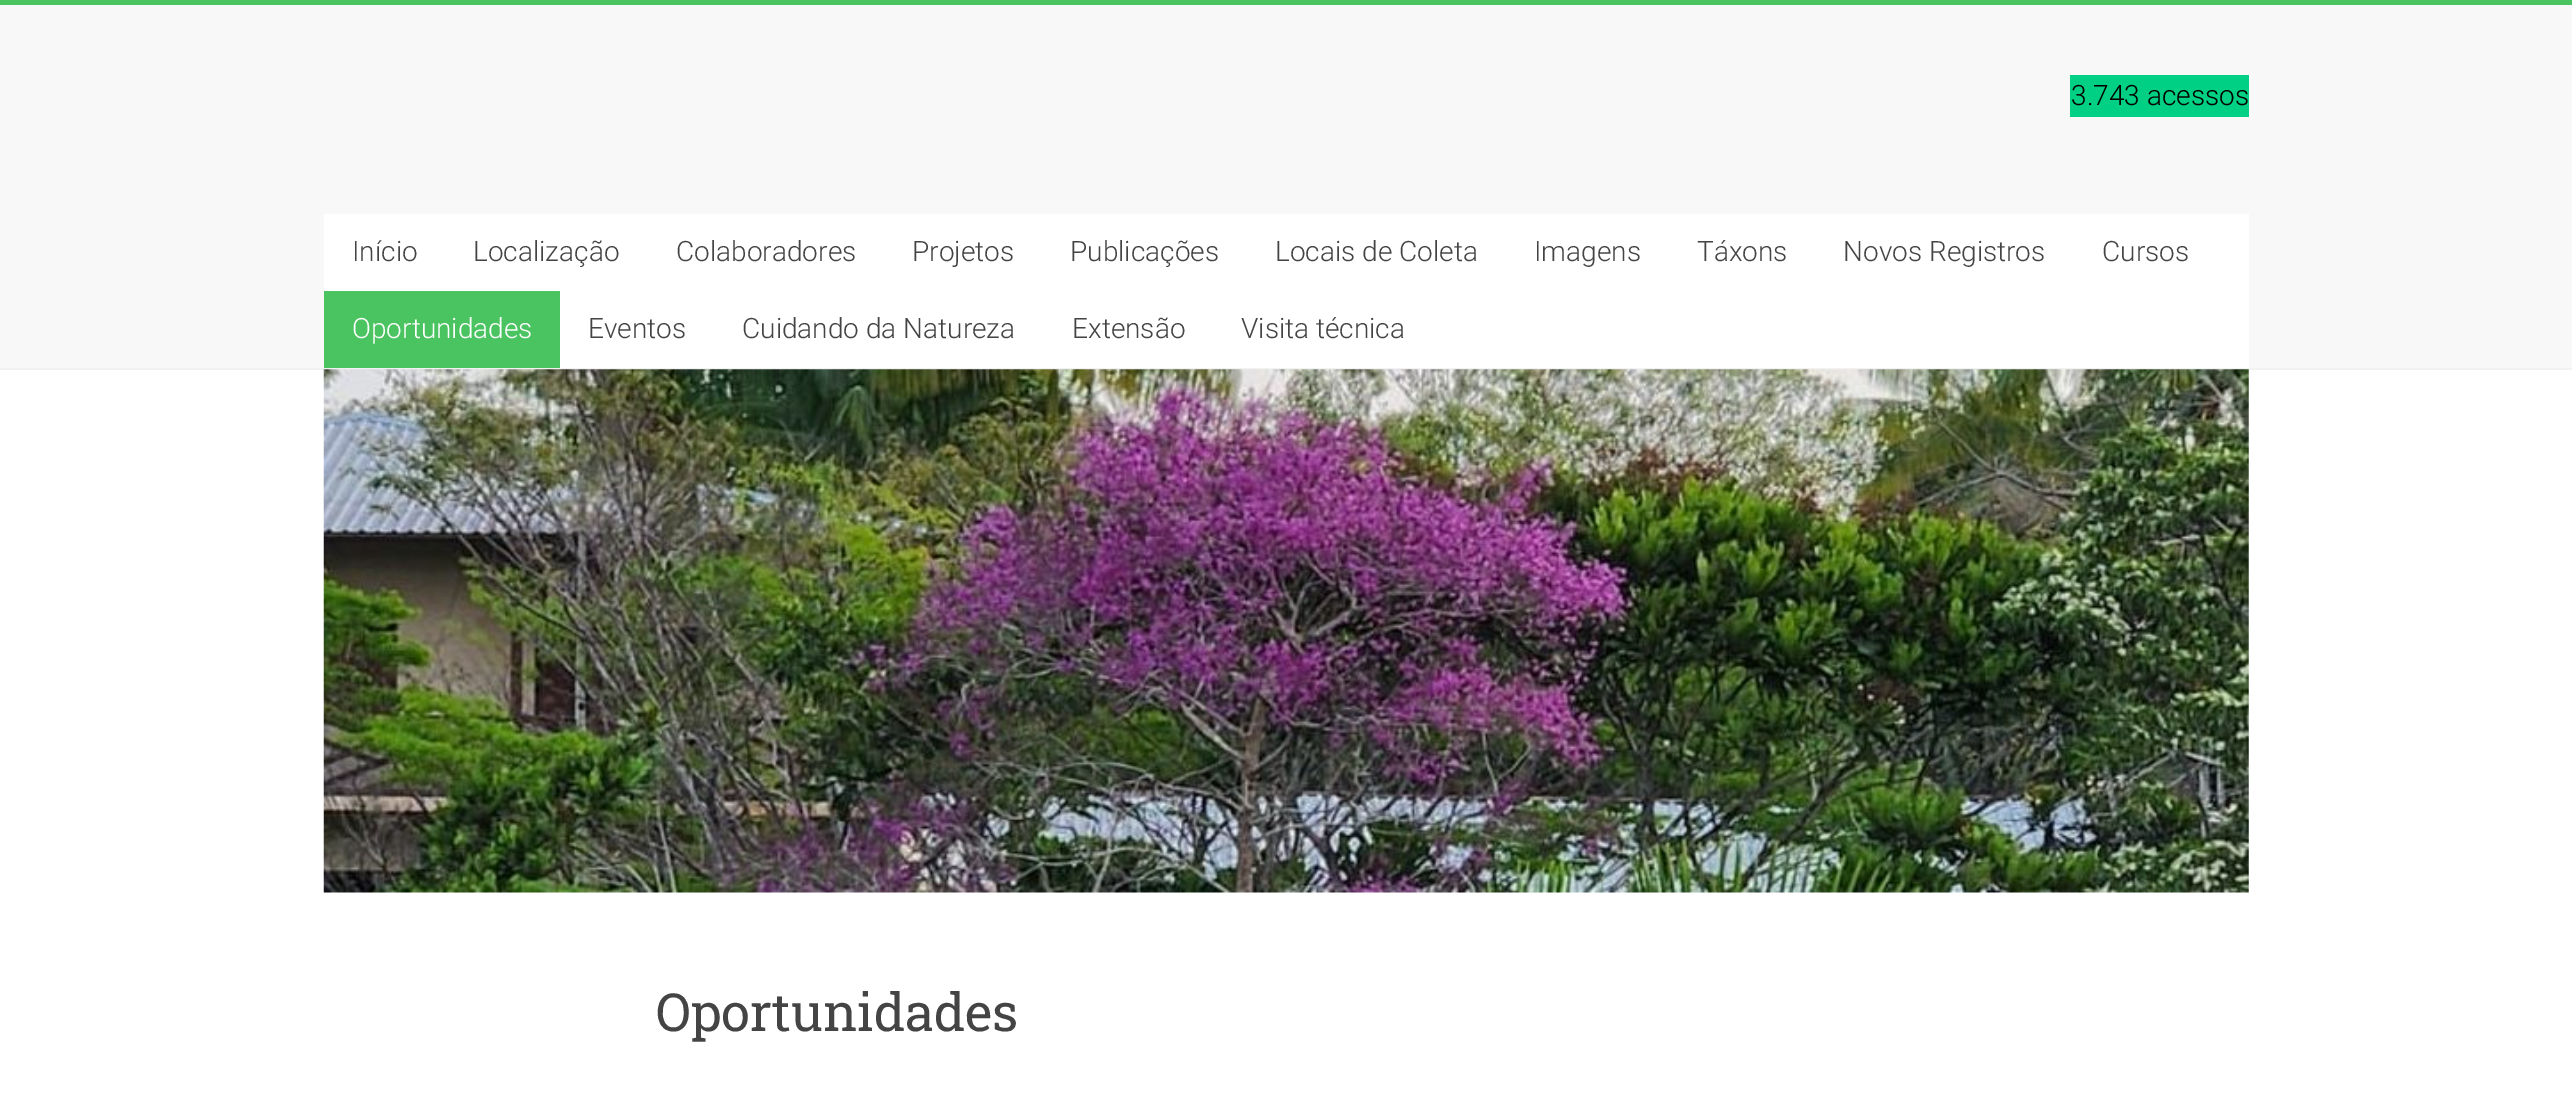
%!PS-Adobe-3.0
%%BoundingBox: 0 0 2572 1116
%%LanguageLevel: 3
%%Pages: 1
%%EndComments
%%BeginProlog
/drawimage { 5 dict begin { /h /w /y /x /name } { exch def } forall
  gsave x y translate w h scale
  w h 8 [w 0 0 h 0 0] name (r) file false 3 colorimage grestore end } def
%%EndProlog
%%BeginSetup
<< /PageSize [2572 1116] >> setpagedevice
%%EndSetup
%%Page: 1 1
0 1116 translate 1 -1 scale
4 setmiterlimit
1 setgray
0 0 2572 1116 rectfill
0.29 0.769 0.376 setrgbcolor
0 0 2572 5 rectfill
0.973 setgray
0 5 2572 363 rectfill
0.949 setgray
0 368 2572 2 rectfill
0 0.816 0.518 setrgbcolor
2070 75 179 42 rectfill
1 setgray
324 214 1925 154 rectfill
0.29 0.769 0.376 setrgbcolor
324 291 236 77 rectfill
(images/1.raw) 323 369 1926 524 drawimage
/Roboto-Light [28 0 0 -28 0 0] selectfont
0 setgray
2071 105 moveto (3.743 acessos) show
0.267 setgray
352 261 moveto (Início) show
473 261 moveto (Localização) show
676 261 moveto (Colaboradores) show
912 261 moveto (Projetos) show
1070 261 moveto (Publicações) show
1275 261 moveto (Locais de Coleta) show
1534 261 moveto (Imagens) show
1697 261 moveto (Táxons) show
1843 261 moveto (Novos Registros) show
2102 261 moveto (Cursos) show
1 setgray
352 338 moveto (Oportunidades) show
0.267 setgray
588 338 moveto (Eventos) show
742 338 moveto (Cuidando da Natureza) show
1072 338 moveto (Extensão) show
1241 338 moveto (Visita técnica) show
/RobotoSlab-Regular [52.5 0 0 -52.5 0 0] selectfont
656 1031 moveto (Oportunidades) show
showpage
%%EOF
